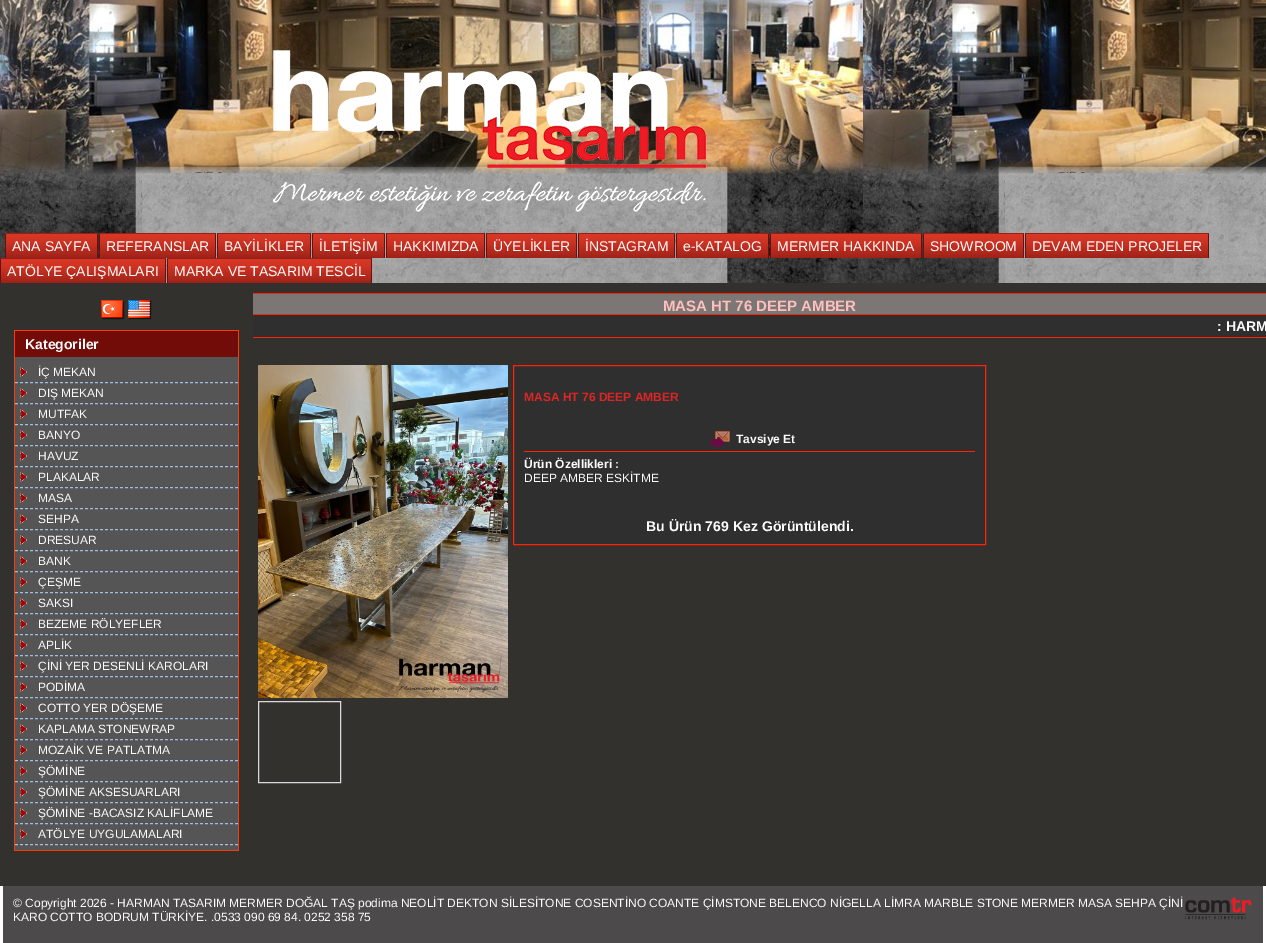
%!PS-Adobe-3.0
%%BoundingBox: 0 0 1266 943
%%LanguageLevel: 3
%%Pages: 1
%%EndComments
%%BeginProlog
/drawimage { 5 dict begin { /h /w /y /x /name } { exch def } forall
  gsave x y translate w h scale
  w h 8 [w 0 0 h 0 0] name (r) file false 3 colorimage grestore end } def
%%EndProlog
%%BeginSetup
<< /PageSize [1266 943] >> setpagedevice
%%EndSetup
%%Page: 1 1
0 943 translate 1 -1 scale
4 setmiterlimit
1 setgray
0 0 1266 943 rectfill
(images/1.raw) 0 0 1266 943 drawimage
(images/2.raw) 273 50 434 162 drawimage
(images/3.raw) 5 233 2 25 drawimage
(images/4.raw) 7 233 89 25 drawimage
(images/5.raw) 96 233 2 25 drawimage
(images/3.raw) 99 233 2 25 drawimage
(images/6.raw) 101 233 113 25 drawimage
(images/5.raw) 214 233 2 25 drawimage
(images/3.raw) 217 233 2 25 drawimage
(images/7.raw) 219 233 90 25 drawimage
(images/5.raw) 309 233 2 25 drawimage
(images/3.raw) 312 233 2 25 drawimage
(images/8.raw) 314 233 69 25 drawimage
(images/5.raw) 383 233 2 25 drawimage
(images/3.raw) 386 233 2 25 drawimage
(images/9.raw) 388 233 95 25 drawimage
(images/5.raw) 483 233 2 25 drawimage
(images/3.raw) 486 233 2 25 drawimage
(images/10.raw) 488 233 87 25 drawimage
(images/5.raw) 575 233 2 25 drawimage
(images/3.raw) 578 233 2 25 drawimage
(images/11.raw) 580 233 93 25 drawimage
(images/5.raw) 673 233 2 25 drawimage
(images/3.raw) 676 233 2 25 drawimage
(images/4.raw) 678 233 89 25 drawimage
(images/5.raw) 767 233 2 25 drawimage
(images/3.raw) 770 233 2 25 drawimage
(images/12.raw) 772 233 148 25 drawimage
(images/5.raw) 920 233 2 25 drawimage
(images/3.raw) 923 233 2 25 drawimage
(images/13.raw) 925 233 97 25 drawimage
(images/5.raw) 1022 233 2 25 drawimage
(images/3.raw) 1025 233 2 25 drawimage
(images/14.raw) 1027 233 180 25 drawimage
(images/5.raw) 1207 233 2 25 drawimage
(images/3.raw) 0 258 2 25 drawimage
(images/15.raw) 2 258 162 25 drawimage
(images/5.raw) 164 258 2 25 drawimage
(images/3.raw) 167 258 2 25 drawimage
(images/16.raw) 169 258 201 25 drawimage
(images/5.raw) 370 258 2 25 drawimage
0.2 0.192 0.18 setrgbcolor
0 283 1266 603 rectfill
(images/17.raw) 101 300 24 20 drawimage
(images/18.raw) 128 300 24 20 drawimage
0.988 0.227 0.02 setrgbcolor
14 330 225 1 rectfill
238 331 1 519 rectfill
14 331 1 519 rectfill
0.447 0.047 0.035 setrgbcolor
15 331 223 26 rectfill
0.337 0.333 0.337 setrgbcolor
15 357 223 493 rectfill
(images/19.raw) 20 367 7 10 drawimage
0.639 0.741 0.878 setrgbcolor
[3 2] 0 setdash
newpath 15 382.5 moveto 238 382.5 lineto stroke
(images/19.raw) 20 388 7 10 drawimage
newpath 15 403.5 moveto 238 403.5 lineto stroke
(images/19.raw) 20 409 7 10 drawimage
newpath 15 424.5 moveto 238 424.5 lineto stroke
(images/19.raw) 20 430 7 10 drawimage
newpath 15 445.5 moveto 238 445.5 lineto stroke
(images/19.raw) 20 451 7 10 drawimage
newpath 15 466.5 moveto 238 466.5 lineto stroke
(images/19.raw) 20 472 7 10 drawimage
newpath 15 487.5 moveto 238 487.5 lineto stroke
(images/19.raw) 20 493 7 10 drawimage
newpath 15 508.5 moveto 238 508.5 lineto stroke
(images/19.raw) 20 514 7 10 drawimage
newpath 15 529.5 moveto 238 529.5 lineto stroke
(images/19.raw) 20 535 7 10 drawimage
newpath 15 550.5 moveto 238 550.5 lineto stroke
(images/19.raw) 20 556 7 10 drawimage
newpath 15 571.5 moveto 238 571.5 lineto stroke
(images/19.raw) 20 577 7 10 drawimage
newpath 15 592.5 moveto 238 592.5 lineto stroke
(images/19.raw) 20 598 7 10 drawimage
newpath 15 613.5 moveto 238 613.5 lineto stroke
(images/19.raw) 20 619 7 10 drawimage
newpath 15 634.5 moveto 238 634.5 lineto stroke
(images/19.raw) 20 640 7 10 drawimage
newpath 15 655.5 moveto 238 655.5 lineto stroke
(images/19.raw) 20 661 7 10 drawimage
newpath 15 676.5 moveto 238 676.5 lineto stroke
(images/19.raw) 20 682 7 10 drawimage
newpath 15 697.5 moveto 238 697.5 lineto stroke
(images/19.raw) 20 703 7 10 drawimage
newpath 15 718.5 moveto 238 718.5 lineto stroke
(images/19.raw) 20 724 7 10 drawimage
newpath 15 739.5 moveto 238 739.5 lineto stroke
(images/19.raw) 20 745 7 10 drawimage
newpath 15 760.5 moveto 238 760.5 lineto stroke
(images/19.raw) 20 766 7 10 drawimage
newpath 15 781.5 moveto 238 781.5 lineto stroke
(images/19.raw) 20 787 7 10 drawimage
newpath 15 802.5 moveto 238 802.5 lineto stroke
(images/19.raw) 20 808 7 10 drawimage
newpath 15 823.5 moveto 238 823.5 lineto stroke
(images/19.raw) 20 829 7 10 drawimage
newpath 15 844.5 moveto 238 844.5 lineto stroke
0.988 0.227 0.02 setrgbcolor
14 850 225 1 rectfill
0.486 0.467 0.455 setrgbcolor
253 294 1013 20 rectfill
1 0.133 0.02 setrgbcolor
253 293 1013 1 rectfill
253 314 1013 1 rectfill
0.188 0.184 0.184 setrgbcolor
253 315 1013 22 rectfill
1 0.133 0.02 setrgbcolor
253 337 1013 1 rectfill
(images/20.raw) 258 365 250 333 drawimage
0.855 0.855 0.863 setrgbcolor
[] 0 setdash
258.5 701.5 82 81 rectstroke
0.188 0.184 0.184 setrgbcolor
newpath 513.5 365.5 moveto 985.5 365.5 lineto 985.5 544.5 lineto 513.5 544.5 lineto closepath gsave fill grestore
1 0.133 0.02 setrgbcolor
stroke
(images/21.raw) 711 431 19 18 drawimage
524 451 451 1 rectfill
0.298 0.29 0.29 setrgbcolor
3 886 1260 57 rectfill
(images/22.raw) 1185 897 67 23 drawimage
/LiberationSans-Regular [14 0 0 -14 0 0] selectfont
0.988 setgray
12 251 moveto (ANA SAYFA) show
106 251 moveto (REFERANSLAR) show
224 251 moveto (BAYİLİKLER) show
319 251 moveto (İLETİŞİM) show
393 251 moveto (HAKKIMIZDA) show
493 251 moveto (ÜYELİKLER) show
585 251 moveto (İNSTAGRAM) show
683 251 moveto (e-KATALOG) show
777 251 moveto (MERMER HAKKINDA) show
930 251 moveto (SHOWROOM) show
1032 251 moveto (DEVAM EDEN PROJELER) show
7 276 moveto (ATÖLYE ÇALIŞMALARI) show
174 276 moveto (MARKA VE TASARIM TESCİL) show
/LiberationSans-Bold [14 0 0 -14 0 0] selectfont
25 349 moveto (Kategoriler) show
/LiberationSans-Regular [12 0 0 -12 0 0] selectfont
38 376 moveto (İÇ MEKAN) show
38 397 moveto (DIŞ MEKAN) show
38 418 moveto (MUTFAK) show
38 439 moveto (BANYO) show
38 460 moveto (HAVUZ) show
38 481 moveto (PLAKALAR) show
38 502 moveto (MASA) show
38 523 moveto (SEHPA) show
38 544 moveto (DRESUAR) show
38 565 moveto (BANK) show
38 586 moveto (ÇEŞME) show
38 607 moveto (SAKSI) show
38 628 moveto (BEZEME RÖLYEFLER) show
38 649 moveto (APLİK) show
38 670 moveto (ÇİNİ YER DESENLİ KAROLARI) show
38 691 moveto (PODİMA) show
38 712 moveto (COTTO YER DÖŞEME) show
38 733 moveto (KAPLAMA STONEWRAP) show
38 754 moveto (MOZAİK VE PATLATMA) show
38 775 moveto (ŞÖMİNE) show
38 796 moveto (ŞÖMİNE AKSESUARLARI) show
38 817 moveto (ŞÖMİNE -BACASIZ KALİFLAME) show
38 838 moveto (ATÖLYE UYGULAMALARI) show
/LiberationSans-Bold [15 0 0 -15 0 0] selectfont
1 0.749 0.749 setrgbcolor
663 311 moveto (MASA HT 76 DEEP AMBER) show
/LiberationSans-Bold [14 0 0 -14 0 0] selectfont
0.988 setgray
1217 331 moveto (: HARM) show
/LiberationSans-Bold [12 0 0 -12 0 0] selectfont
0.867 0.145 0.145 setrgbcolor
524 401 moveto (MASA HT 76 DEEP AMBER) show
0.988 setgray
736 443 moveto (Tavsiye Et) show
524 468 moveto (Ürün Özellikleri :) show
/LiberationSans-Regular [12 0 0 -12 0 0] selectfont
524 482 moveto (DEEP AMBER ESKİTME) show
/LiberationSans-Bold [14 0 0 -14 0 0] selectfont
646 531 moveto (Bu Ürün) show
705 531 moveto (769) show
733 531 moveto (Kez Görüntülendi.) show
/LiberationSans-Regular [12 0 0 -12 0 0] selectfont
13 907 moveto (© Copyright 2026 - HARMAN TASARIM MERMER DOĞAL TAŞ podima NEOLİT DEKTON SİLESİTONE COSENTİNO COANTE ÇİMSTONE BELENCO NİGELLA LİMRA MARBLE STONE MERMER MASA SEHPA ÇİNİ) show
13 921 moveto (KARO COTTO BODRUM TÜRKİYE. .0533 090 69 84. 0252 358 75) show
showpage
%%EOF
